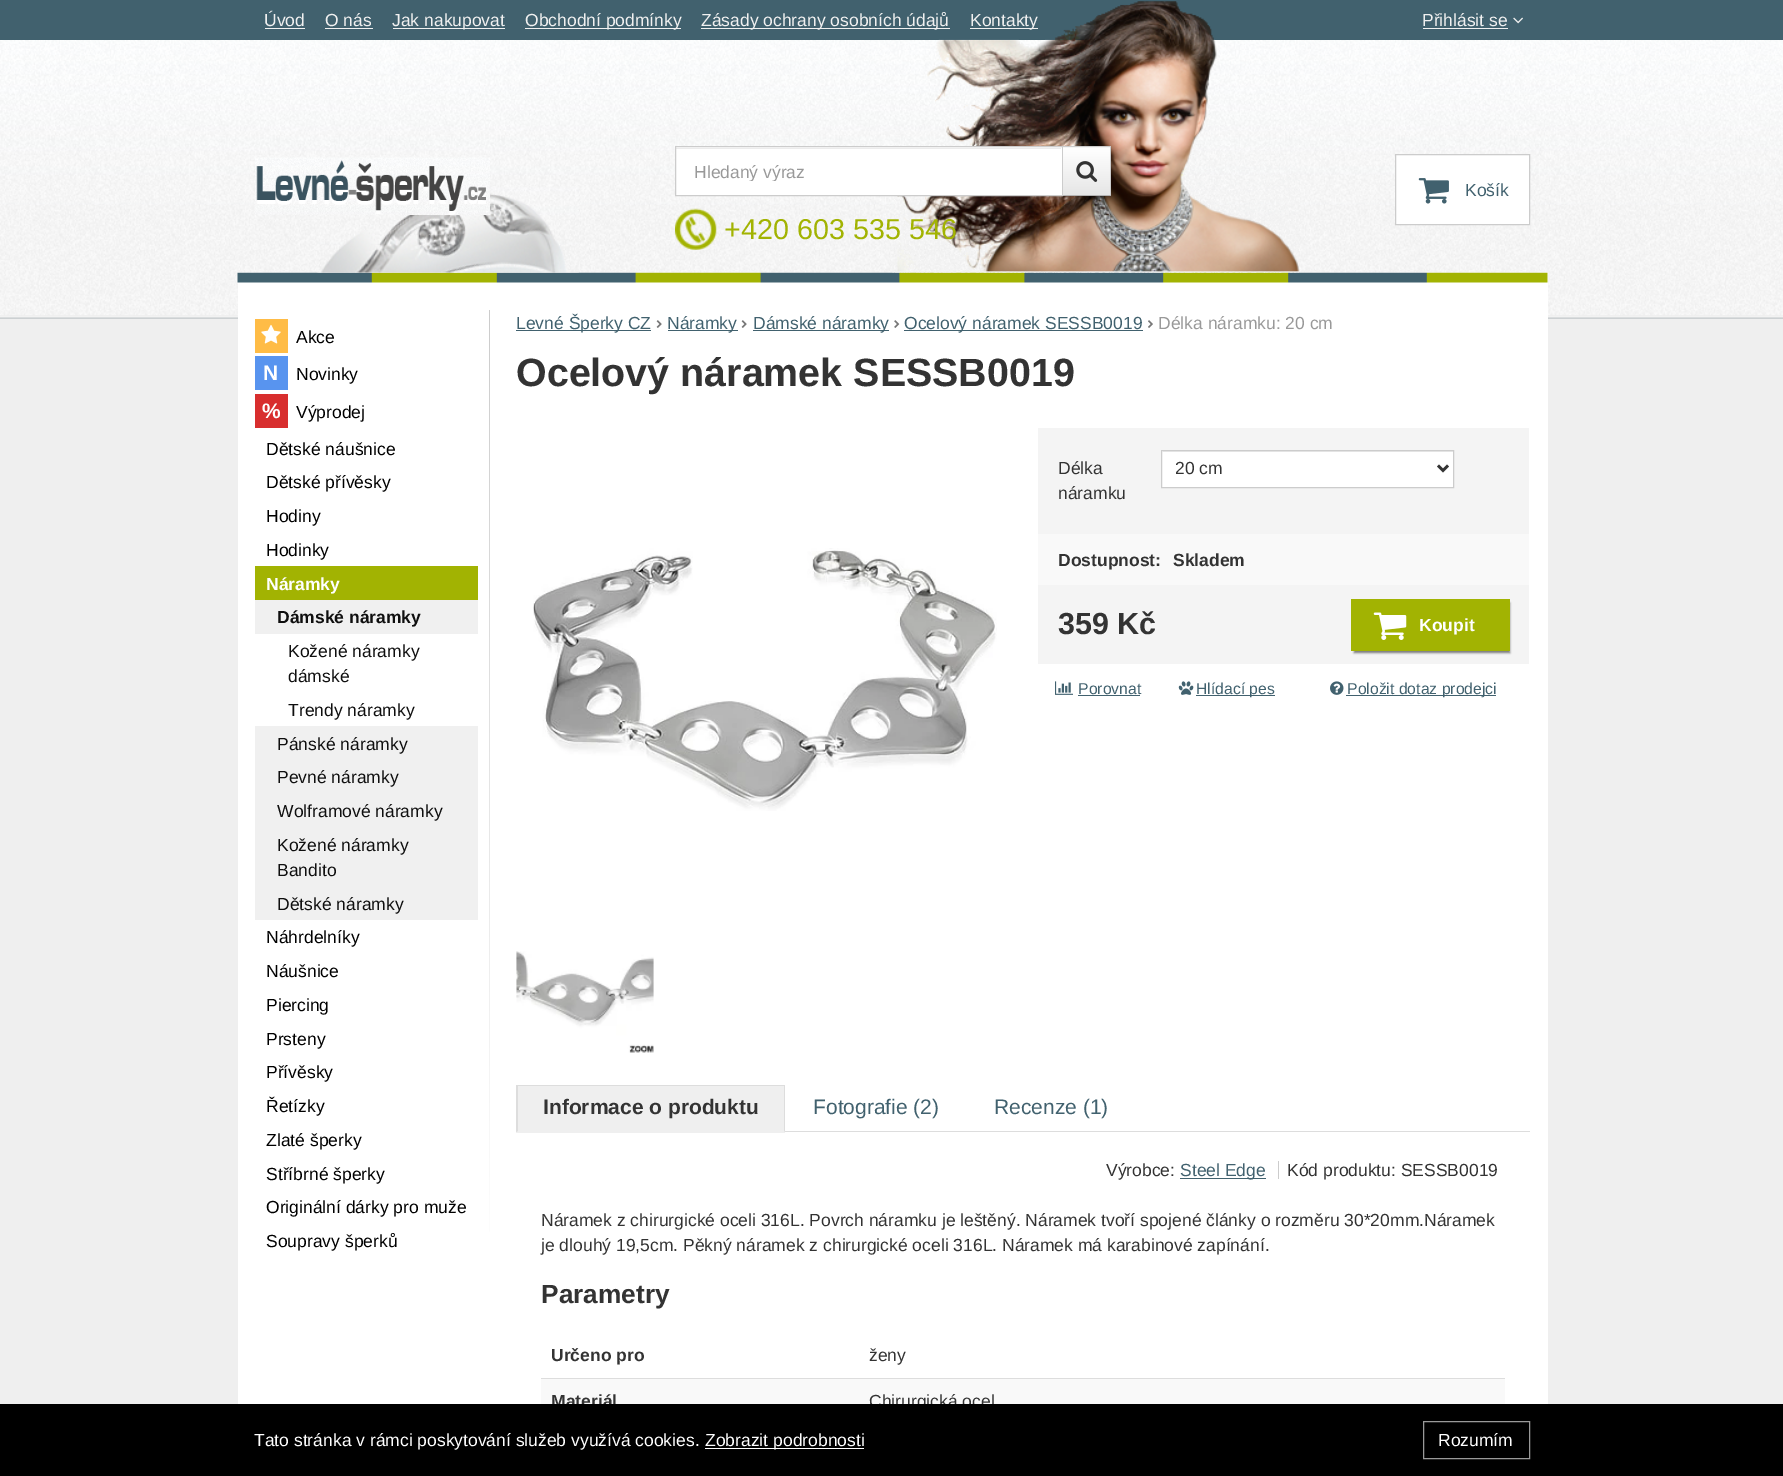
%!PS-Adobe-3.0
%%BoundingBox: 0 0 1783 1476
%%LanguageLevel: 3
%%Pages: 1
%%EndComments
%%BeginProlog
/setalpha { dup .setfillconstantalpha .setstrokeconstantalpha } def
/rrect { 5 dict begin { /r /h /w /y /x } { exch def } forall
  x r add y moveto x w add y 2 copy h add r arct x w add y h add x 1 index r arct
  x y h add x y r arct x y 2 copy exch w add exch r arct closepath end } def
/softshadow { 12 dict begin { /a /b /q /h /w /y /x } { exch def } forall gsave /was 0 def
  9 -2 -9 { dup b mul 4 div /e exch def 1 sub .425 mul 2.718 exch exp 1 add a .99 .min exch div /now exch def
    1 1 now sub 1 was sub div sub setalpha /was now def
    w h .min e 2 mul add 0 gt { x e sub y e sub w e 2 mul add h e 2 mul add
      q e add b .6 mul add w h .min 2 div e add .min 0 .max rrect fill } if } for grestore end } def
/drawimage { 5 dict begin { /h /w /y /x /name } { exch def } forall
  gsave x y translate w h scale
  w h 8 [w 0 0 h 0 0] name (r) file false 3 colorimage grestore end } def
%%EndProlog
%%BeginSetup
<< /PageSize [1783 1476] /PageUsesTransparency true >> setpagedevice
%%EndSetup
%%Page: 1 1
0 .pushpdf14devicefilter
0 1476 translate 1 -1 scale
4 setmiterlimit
0.937 setgray
0 0 1783 1476 rectfill
(images/1.raw) 0 40 1783 279 drawimage
1 setgray
238 272 1310 1132 rectfill
(images/10.raw) 237 272 1311 11 drawimage
(images/2.raw) 237 40 1311 233 drawimage
0.255 0.38 0.431 setrgbcolor
0 0 1783 40 rectfill
(images/3.raw) 892 1 408 272 drawimage
0.941 setgray
265 28 40 1 rectfill
325 28 48 1 rectfill
393 28 112 1 rectfill
525 28 156 1 rectfill
701 28 249 1 rectfill
970 28 68 1 rectfill
1423 28 85 1 rectfill
(images/4.raw) 1513 17 10 7 drawimage
(images/5.raw) 317 187 262 86 drawimage
(images/6.raw) 255 157 235 58 drawimage
0 setgray
1061 148 50 50 0 1 0.05 softshadow
1 setgray
676 147 386 48 rectfill
0.925 setgray
676 148 385 1 rectfill
0.8 setgray
1061 146 50 1 rectfill
1110 146 1 50 rectfill
0.702 setgray
1061 195 50 1 rectfill
0.8 setgray
675.5 146.5 387 49 rectstroke
0.961 setgray
1063 147 47 1 rectfill
gsave newpath 1063 148 moveto 1110 148 lineto 1110 195 lineto 1063 195 lineto closepath clip newpath
<< /ShadingType 2 /ColorSpace /DeviceRGB /Coords [1086 148 1086 195] /Extend [true true] /Function << /FunctionType 2 /Domain [0 1] /C0 [1 1 1] /C1 [0.902 0.902 0.902] /N 1 >> >> shfill grestore
(images/7.raw) 1076 161 22 21 drawimage
(images/8.raw) 675 208 42 42 drawimage
1 setgray
newpath 1395.5 154.5 moveto 1529.5 154.5 lineto 1529.5 224.5 lineto 1395.5 224.5 lineto closepath gsave fill grestore
0.8 setgray
stroke
(images/9.raw) 1418 178 31 26 drawimage
1 0.737 0.275 setrgbcolor
255 319 33 34 rectfill
(images/11.raw) 261 324 20 20 drawimage
0.345 0.58 0.937 setrgbcolor
255 356 33 34 rectfill
0.847 0.18 0.18 setrgbcolor
255 394 33 34 rectfill
0.635 0.702 0.008 setrgbcolor
255 566 223 34 rectfill
0.941 setgray
255 600 223 320 rectfill
1 setgray
255 634 223 92 rectfill
gsave newpath 489 310 moveto 490 310 lineto 490 1232 lineto 489 1232 lineto closepath clip newpath
<< /ShadingType 2 /ColorSpace /DeviceRGB /Coords [489 310 489 1279] /Extend [true true] /Function << /FunctionType 2 /Domain [0 1] /C0 [0.8 0.8 0.8] /C1 [1 1 1] /N 1 >> >> shfill grestore
0.255 0.38 0.431 setrgbcolor
516 330 135 1 rectfill
(images/12.raw) 656 320 6 8 drawimage
668 330 70 1 rectfill
(images/12.raw) 741 320 6 8 drawimage
753 330 136 1 rectfill
(images/13.raw) 894 320 6 8 drawimage
904 330 239 1 rectfill
(images/14.raw) 1148 320 5 8 drawimage
(images/15.raw) 533 548 464 263 drawimage
(images/16.raw) 516 951 138 102 drawimage
0.957 setgray
1038 428 491 106 rectfill
1 setgray
1162 451 291 36 rectfill
0.925 setgray
1163 451 290 1 rectfill
0.8 setgray
1161.5 450.5 292 37 rectstroke
0.2 setgray
2.5 setlinewidth
newpath 1438 465.5 moveto 1443 470.5 lineto 1448 465.5 lineto stroke
0.976 setgray
1038 534 491 51 rectfill
0.957 setgray
1038 585 491 79 rectfill
0 setgray
1354 603 156 50 0 1 0.5 softshadow
0.635 0.702 0.008 setrgbcolor
1351 599 159 52 rectfill
(images/17.raw) 1373 612 34 28 drawimage
(images/18.raw) 1055 681 18 14 drawimage
0.255 0.38 0.431 setrgbcolor
1078 695 62 1 rectfill
(images/19.raw) 1178 681 16 14 drawimage
1196 695 79 1 rectfill
(images/20.raw) 1330 681 14 14 drawimage
1346 695 150 1 rectfill
0.867 setgray
785 1131 745 1 rectfill
0.937 setgray
516 1086 269 47 rectfill
0.867 setgray
516 1085 269 1 rectfill
newpath 785 1085 moveto 785 1132 lineto 784 1131 lineto 784 1086 lineto closepath fill
newpath 516 1132 moveto 516 1085 lineto 518 1086 lineto 518 1131 lineto closepath fill
0.255 0.38 0.431 setrgbcolor
1180 1178 86 1 rectfill
0.8 setgray
1278 1161 1 18 rectfill
0.976 setgray
541 1379 964 25 rectfill
0.867 setgray
541 1378 964 1 rectfill
/LiberationSans-Regular [17.5 0 0 -17.5 0 0] selectfont
0.941 setgray
264 26 moveto (Úvod) show
325 26 moveto (O nás) show
392 26 moveto (Jak nakupovat) show
525 26 moveto (Obchodní podmínky) show
701 26 moveto (Zásady ochrany osobních údajů) show
970 26 moveto (Kontakty) show
1422 26 moveto (Přihlásit se) show
gsave
694 161 345 20 rectclip
0.6 setgray
694 178 moveto (Hledaný výraz) show
grestore
/LiberationSans-Regular [28.75 0 0 -28.75 0 0] selectfont
0.635 0.702 0.008 setrgbcolor
724 239 moveto (+420 603 535 546) show
/LiberationSans-Regular [17.5 0 0 -17.5 0 0] selectfont
0.255 0.38 0.431 setrgbcolor
1465 196 moveto (Košík) show
0 setgray
296 343 moveto (Akce) show
/LiberationSans-Bold [21 0 0 -21 0 0] selectfont
1 setgray
263 380 moveto (N) show
/LiberationSans-Regular [17.5 0 0 -17.5 0 0] selectfont
0 setgray
296 380 moveto (Novinky) show
/LiberationSans-Bold [21 0 0 -21 0 0] selectfont
1 setgray
262 418 moveto (%) show
/LiberationSans-Regular [17.5 0 0 -17.5 0 0] selectfont
0 setgray
296 418 moveto (Výprodej) show
266 455 moveto (Dětské náušnice) show
266 488 moveto (Dětské přívěsky) show
266 522 moveto (Hodiny) show
266 556 moveto (Hodinky) show
/LiberationSans-Bold [17.5 0 0 -17.5 0 0] selectfont
1 setgray
266 590 moveto (Náramky) show
0.059 setgray
277 623 moveto (Dámské náramky) show
/LiberationSans-Regular [17.5 0 0 -17.5 0 0] selectfont
288 657 moveto (Kožené náramky) show
288 682 moveto (dámské) show
288 716 moveto (Trendy náramky) show
277 750 moveto (Pánské náramky) show
277 783 moveto (Pevné náramky) show
277 817 moveto (Wolframové náramky) show
277 851 moveto (Kožené náramky) show
277 876 moveto (Bandito) show
277 910 moveto (Dětské náramky) show
0 setgray
266 943 moveto (Náhrdelníky) show
266 977 moveto (Náušnice) show
266 1011 moveto (Piercing) show
266 1045 moveto (Prsteny) show
266 1078 moveto (Přívěsky) show
266 1112 moveto (Řetízky) show
266 1146 moveto (Zlaté šperky) show
266 1180 moveto (Stříbrné šperky) show
266 1213 moveto (Originální dárky pro muže) show
266 1247 moveto (Soupravy šperků) show
0.255 0.38 0.431 setrgbcolor
516 329 moveto (Levné Šperky CZ) show
667 329 moveto (Náramky) show
753 329 moveto (Dámské náramky) show
904 329 moveto (Ocelový náramek SESSB0019) show
0.6 setgray
1158 329 moveto (Délka náramku: 20 cm) show
/LiberationSans-Bold [39.4 0 0 -39.4 0 0] selectfont
0.2 setgray
516 386 moveto (Ocelový náramek SESSB0019) show
/LiberationSans-Regular [17.5 0 0 -17.5 0 0] selectfont
1058 474 moveto (Délka) show
1058 499 moveto (náramku) show
1175 474 moveto (20 cm) show
/LiberationSans-Bold [17.5 0 0 -17.5 0 0] selectfont
1058 566 moveto (Dostupnost:) show
1173 566 moveto (Skladem) show
/LiberationSans-Bold [30.5 0 0 -30.5 0 0] selectfont
1058 634 moveto (359 Kč) show
/LiberationSans-Bold [17.5 0 0 -17.5 0 0] selectfont
1 setgray
1419 631 moveto (Koupit) show
/LiberationSans-Regular [15.75 0 0 -15.75 0 0] selectfont
0.255 0.38 0.431 setrgbcolor
1078 694 moveto (Porovnat) show
1196 694 moveto (Hlídací pes) show
1347 694 moveto (Položit dotaz prodejci) show
/LiberationSans-Bold [21 0 0 -21 0 0] selectfont
0.2 setgray
543 1114 moveto (Informace o produktu) show
/LiberationSans-Regular [21 0 0 -21 0 0] selectfont
0.255 0.38 0.431 setrgbcolor
813 1114 moveto (Fotografie \(2\)) show
994 1114 moveto (Recenze \(1\)) show
/LiberationSans-Regular [17.5 0 0 -17.5 0 0] selectfont
0.2 setgray
1106 1176 moveto (Výrobce:) show
0.255 0.38 0.431 setrgbcolor
1180 1176 moveto (Steel Edge) show
0.2 setgray
1287 1176 moveto (Kód produktu: SESSB0019) show
541 1226 moveto (Náramek z chirurgické oceli 316L. Povrch náramku je leštěný. Náramek tvoří spojené články o rozměru 30*20mm.Náramek) show
541 1251 moveto (je dlouhý 19,5cm. Pěkný náramek z chirurgické oceli 316L. Náramek má karabinové zapínání.) show
/LiberationSans-Bold [26.25 0 0 -26.25 0 0] selectfont
541 1303 moveto (Parametry) show
/LiberationSans-Bold [17.5 0 0 -17.5 0 0] selectfont
551 1361 moveto (Určeno pro) show
/LiberationSans-Regular [17.5 0 0 -17.5 0 0] selectfont
869 1361 moveto (ženy) show
/LiberationSans-Bold [17.5 0 0 -17.5 0 0] selectfont
551 1407 moveto (Materiál) show
/LiberationSans-Regular [17.5 0 0 -17.5 0 0] selectfont
869 1407 moveto (Chirurgická ocel) show
0 setgray
0 1404 1783 72 rectfill
1 setgray
254 1446 moveto (Tato stránka v rámci poskytování služeb využívá cookies.) show
705 1448 159 1 rectfill
705 1446 moveto (Zobrazit podrobnosti) show
0.6 setgray
1 setlinewidth
1423.5 1421.5 106 37 rectstroke
1 setgray
1438 1446 moveto (Rozumím) show
.poppdf14devicefilter showpage
%%EOF
